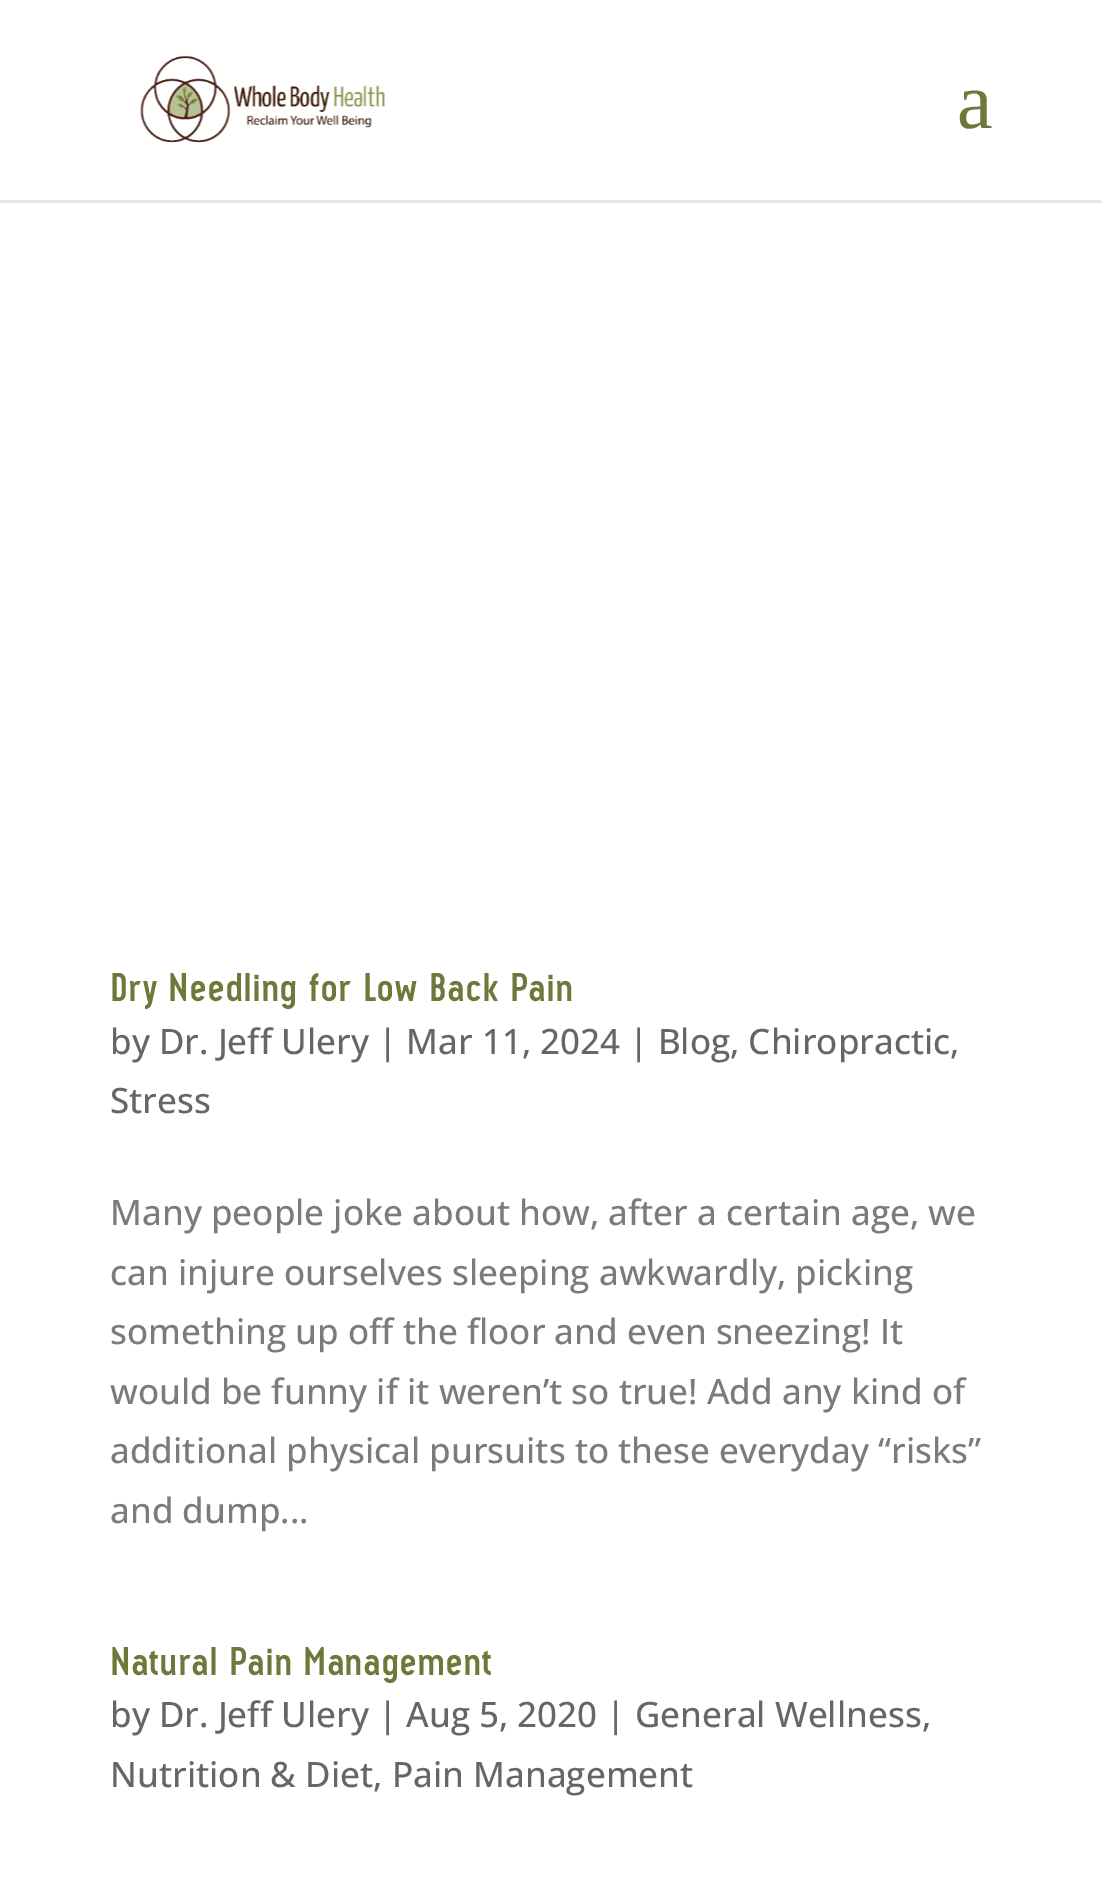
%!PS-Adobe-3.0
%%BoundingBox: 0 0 1102 1882
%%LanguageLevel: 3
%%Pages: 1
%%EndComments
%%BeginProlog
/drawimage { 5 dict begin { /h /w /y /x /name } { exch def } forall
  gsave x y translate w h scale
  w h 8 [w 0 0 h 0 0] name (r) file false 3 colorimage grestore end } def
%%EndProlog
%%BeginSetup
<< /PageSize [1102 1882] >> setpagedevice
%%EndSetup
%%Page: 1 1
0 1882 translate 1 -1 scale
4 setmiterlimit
1 setgray
0 0 1102 1882 rectfill
0.902 setgray
newpath 0 200 moveto 0 203 lineto 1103 203 lineto 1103 3 lineto 1102 3 lineto 1102 200 lineto closepath fill
(images/1.raw) 140 55 245 88 drawimage
/LiberationSerif-Regular [80 0 0 -80 0 0] selectfont
0.427 0.471 0.231 setrgbcolor
957 128 moveto (a) show
/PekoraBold-Bold [40 0 0 -40 0 0] selectfont
110 1001 moveto (Dry Needling for Low Back Pain) show
/OpenSans-Medium [35 0 0 -35 0 0] selectfont
0.4 setgray
110 1054 moveto (by Dr. Jeff Ulery | Mar 11, 2024 | Blog, Chiropractic,) show
110 1113 moveto (Stress) show
0.482 setgray
110 1225 moveto (Many people joke about how, after a certain age, we) show
110 1285 moveto (can injure ourselves sleeping awkwardly, picking) show
110 1344 moveto (something up off the floor and even sneezing! It) show
110 1404 moveto (would be funny if it weren’t so true! Add any kind of) show
110 1463 moveto (additional physical pursuits to these everyday “risks”) show
110 1523 moveto (and dump...) show
/PekoraBold-Bold [40 0 0 -40 0 0] selectfont
0.427 0.471 0.231 setrgbcolor
110 1675 moveto (Natural Pain Management) show
/OpenSans-Medium [35 0 0 -35 0 0] selectfont
0.4 setgray
110 1727 moveto (by Dr. Jeff Ulery | Aug 5, 2020 | General Wellness,) show
110 1787 moveto (Nutrition & Diet, Pain Management) show
showpage
%%EOF
